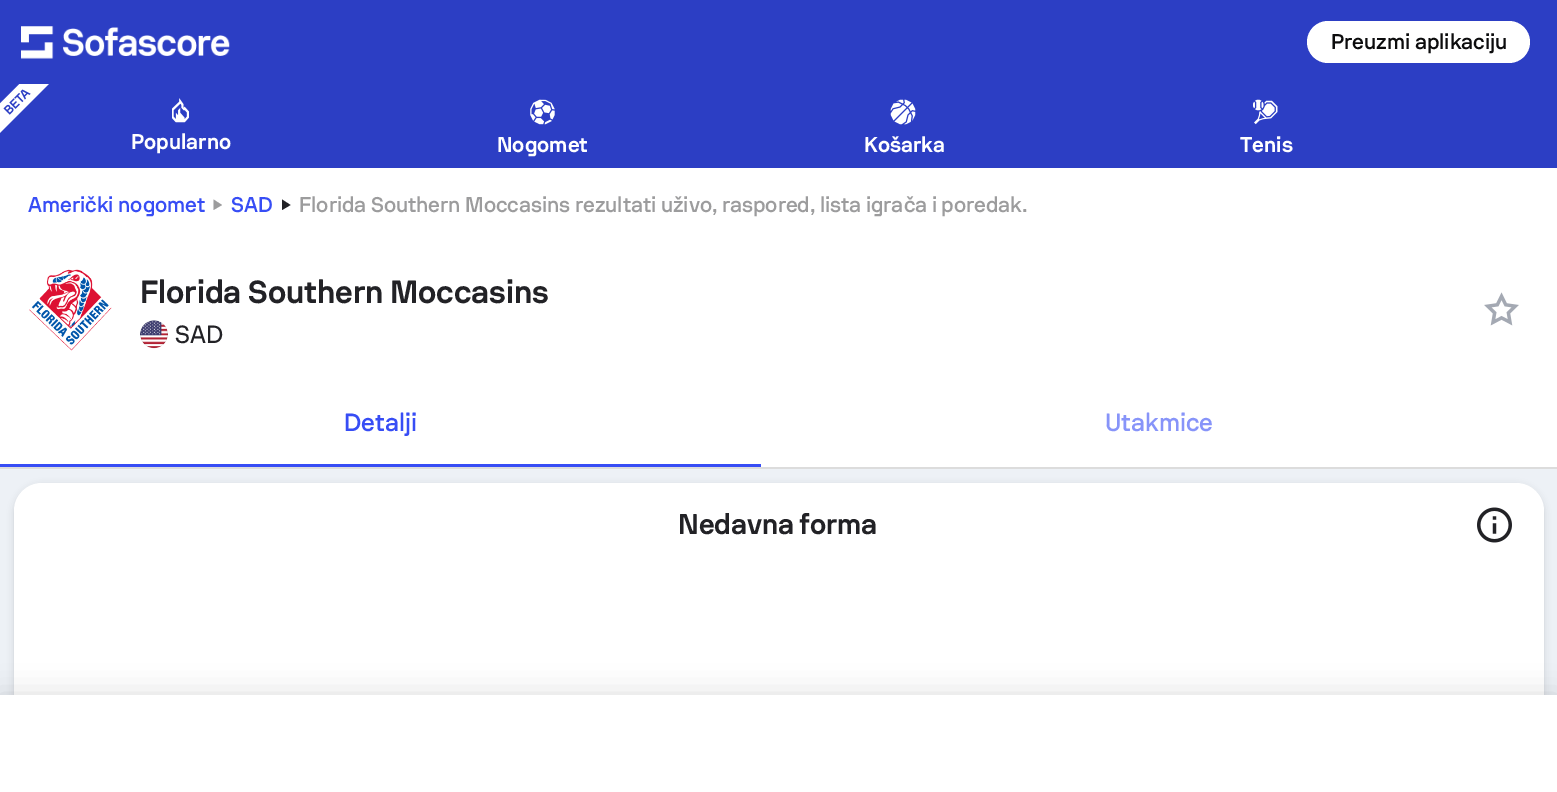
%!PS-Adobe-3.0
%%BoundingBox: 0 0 1557 792
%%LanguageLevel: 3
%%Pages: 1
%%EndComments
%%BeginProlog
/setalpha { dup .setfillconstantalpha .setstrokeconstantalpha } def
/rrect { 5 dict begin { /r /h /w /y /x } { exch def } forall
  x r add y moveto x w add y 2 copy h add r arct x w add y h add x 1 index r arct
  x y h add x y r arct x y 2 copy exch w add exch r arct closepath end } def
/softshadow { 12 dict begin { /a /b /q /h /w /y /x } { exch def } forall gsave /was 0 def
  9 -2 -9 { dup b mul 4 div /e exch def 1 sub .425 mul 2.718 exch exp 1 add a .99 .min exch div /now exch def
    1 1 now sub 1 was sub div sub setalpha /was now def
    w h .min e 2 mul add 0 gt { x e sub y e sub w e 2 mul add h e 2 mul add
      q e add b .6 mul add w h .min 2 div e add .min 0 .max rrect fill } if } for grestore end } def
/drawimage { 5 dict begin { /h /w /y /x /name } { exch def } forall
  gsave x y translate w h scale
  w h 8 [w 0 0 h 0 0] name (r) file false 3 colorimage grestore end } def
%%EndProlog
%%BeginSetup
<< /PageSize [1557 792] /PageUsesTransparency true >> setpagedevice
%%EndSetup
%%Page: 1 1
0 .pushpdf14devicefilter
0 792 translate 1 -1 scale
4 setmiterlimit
0.929 0.945 0.965 setrgbcolor
0 0 1557 792 rectfill
0.173 0.243 0.769 setrgbcolor
0 0 1557 168 rectfill
(images/1.raw) 21 26 209 33 drawimage
1 setgray
1307 21 223 42 21 rrect fill
(images/2.raw) 0 84 49 49 drawimage
(images/3.raw) 172 98 17 25 drawimage
(images/4.raw) 530 99 25 26 drawimage
(images/5.raw) 890 99 26 26 drawimage
(images/6.raw) 1253 99 25 26 drawimage
0 168 1557 299 rectfill
0.612 0.612 0.616 setrgbcolor
newpath 213.5 210 moveto 213.5 199.5 lineto 222 205 lineto closepath fill
0.133 0.133 0.149 setrgbcolor
newpath 282 210 moveto 282 199.5 lineto 290.5 205 lineto closepath fill
(images/7.raw) 29 269 83 82 drawimage
(images/8.raw) 140 320 28 29 drawimage
(images/9.raw) 1484 292 35 34 drawimage
0.863 setgray
0 467 1557 2 rectfill
0.216 0.302 0.961 setrgbcolor
0 464 761 3 rectfill
0.133 0.133 0.149 setrgbcolor
14 485 1530 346 28 3.5 0.16 softshadow
1 setgray
14 483 1530 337 28 rrect fill
(images/10.raw) 1477 507 35 36 drawimage
0.133 0.133 0.149 setrgbcolor
-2 695 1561 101 0 14 0.16 softshadow
1 setgray
0 695 1557 97 rectfill
/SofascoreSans-Medium [21 0 0 -21 0 0] selectfont
0.047 0.047 0.051 setrgbcolor
1331 49 moveto (Preuzmi aplikaciju) show
/SofascoreSans-Bold [21 0 0 -21 0 0] selectfont
1 setgray
131 149 moveto (Popularno) show
497 152 moveto (Nogomet) show
864 152 moveto (Košarka) show
1240 152 moveto (Tenis) show
/SofascoreSans-Medium [21 0 0 -21 0 0] selectfont
0.216 0.302 0.961 setrgbcolor
28 212 moveto (Američki nogomet) show
231 212 moveto (SAD) show
0.612 0.612 0.616 setrgbcolor
299 212 moveto -0.4 0 32 (Florida Southern Moccasins rezultati uživo, raspored, lista igrača i poredak.) widthshow
/SofascoreSans-Bold [31.5 0 0 -31.5 0 0] selectfont
0.133 0.133 0.149 setrgbcolor
140 303 moveto -0.05 0 (Florida Southern Moccasins) ashow
/SofascoreSans-Regular [24.5 0 0 -24.5 0 0] selectfont
175 343 moveto (SAD) show
/SofascoreSans-Medium [24.5 0 0 -24.5 0 0] selectfont
0.216 0.302 0.961 setrgbcolor
344 431 moveto (Detalji) show
0.529 0.58 0.976 setrgbcolor
1105 431 moveto (Utakmice) show
/SofascoreSans-Bold [28 0 0 -28 0 0] selectfont
0.133 0.133 0.149 setrgbcolor
678 534 moveto -1 0 32 -0.05 0 (Nedavna forma) awidthshow
.poppdf14devicefilter showpage
%%EOF
